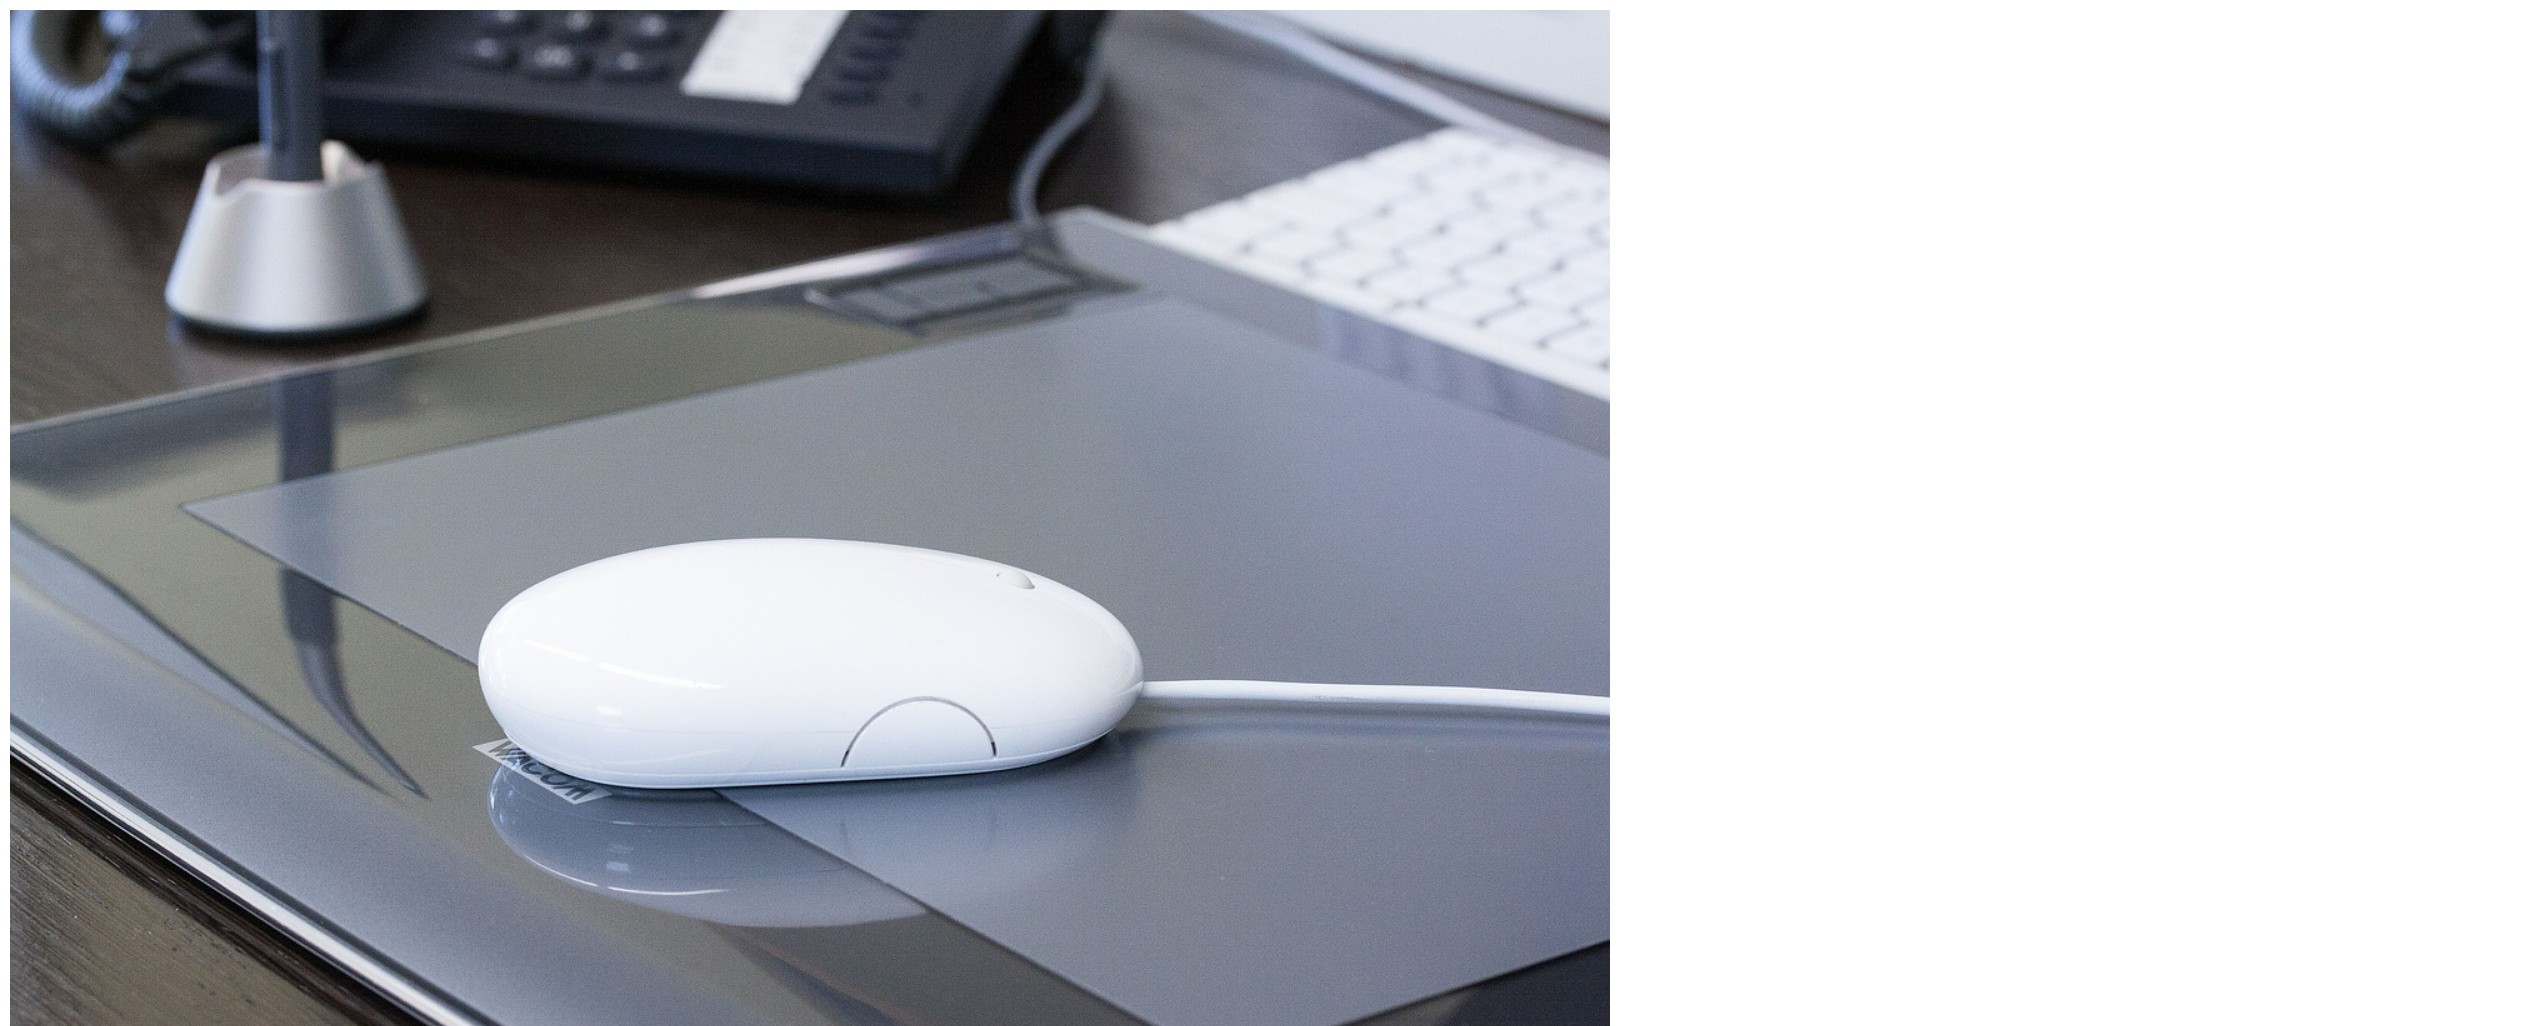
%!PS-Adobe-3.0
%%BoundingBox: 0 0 2546 1026
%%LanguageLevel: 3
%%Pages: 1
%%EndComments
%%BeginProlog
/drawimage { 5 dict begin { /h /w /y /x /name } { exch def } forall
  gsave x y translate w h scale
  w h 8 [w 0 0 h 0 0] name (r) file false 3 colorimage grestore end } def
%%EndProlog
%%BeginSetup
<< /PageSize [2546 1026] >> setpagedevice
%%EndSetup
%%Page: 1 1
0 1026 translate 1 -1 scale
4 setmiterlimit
1 setgray
0 0 2546 1026 rectfill
(images/1.raw) 10 10 1600 1016 drawimage
showpage
%%EOF
